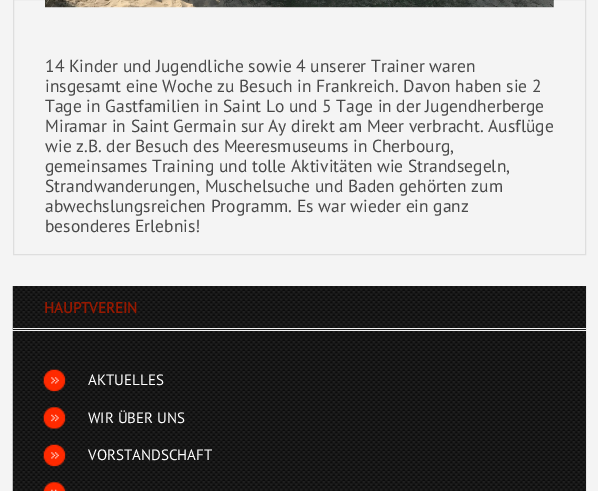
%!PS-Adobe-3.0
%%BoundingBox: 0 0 598 491
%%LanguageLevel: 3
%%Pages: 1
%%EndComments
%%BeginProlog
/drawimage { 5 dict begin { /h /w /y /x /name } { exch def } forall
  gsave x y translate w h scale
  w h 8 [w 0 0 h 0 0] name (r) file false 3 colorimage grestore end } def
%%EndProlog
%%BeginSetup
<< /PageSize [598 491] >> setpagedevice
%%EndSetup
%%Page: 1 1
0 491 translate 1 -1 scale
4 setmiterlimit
0.957 setgray
0 0 598 491 rectfill
0.871 setgray
13.5 -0.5 572 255 rectstroke
(images/1.raw) 45 0 509 8 drawimage
(images/2.raw) 12 286 575 44 drawimage
0.957 setgray
13 328 573 1 rectfill
(images/3.raw) 12 331 575 160 drawimage
(images/4.raw) 43 369 23 23 drawimage
(images/5.raw) 43 407 23 22 drawimage
(images/4.raw) 43 444 23 23 drawimage
(images/6.raw) 43 482 23 9 drawimage
/PTSans-Regular [17.5 0 0 -17.5 0 0] selectfont
0.29 setgray
45 72 moveto (14 Kinder und Jugendliche sowie 4 unserer Trainer waren) show
45 92 moveto (insgesamt eine Woche zu Besuch in Frankreich. Davon haben sie 2) show
45 112 moveto (Tage in Gastfamilien in Saint Lo und 5 Tage in der Jugendherberge) show
45 132 moveto (Miramar in Saint Germain sur Ay direkt am Meer verbracht. Ausflüge) show
45 152 moveto (wie z.B. der Besuch des Meeresmuseums in Cherbourg,) show
45 172 moveto (gemeinsames Training und tolle Aktivitäten wie Strandsegeln,) show
45 192 moveto (Strandwanderungen, Muschelsuche und Baden gehörten zum) show
45 212 moveto (abwechslungsreichen Programm. Es war wieder ein ganz) show
45 232 moveto (besonderes Erlebnis!) show
/PTSans-Bold [15 0 0 -15 0 0] selectfont
0.588 0.094 0 setrgbcolor
44 313 moveto (HAUPTVEREIN) show
/PTSans-Regular [15 0 0 -15 0 0] selectfont
1 setgray
88 385 moveto (AKTUELLES) show
88 423 moveto (WIR ÜBER UNS) show
88 460 moveto (VORSTANDSCHAFT) show
showpage
%%EOF
